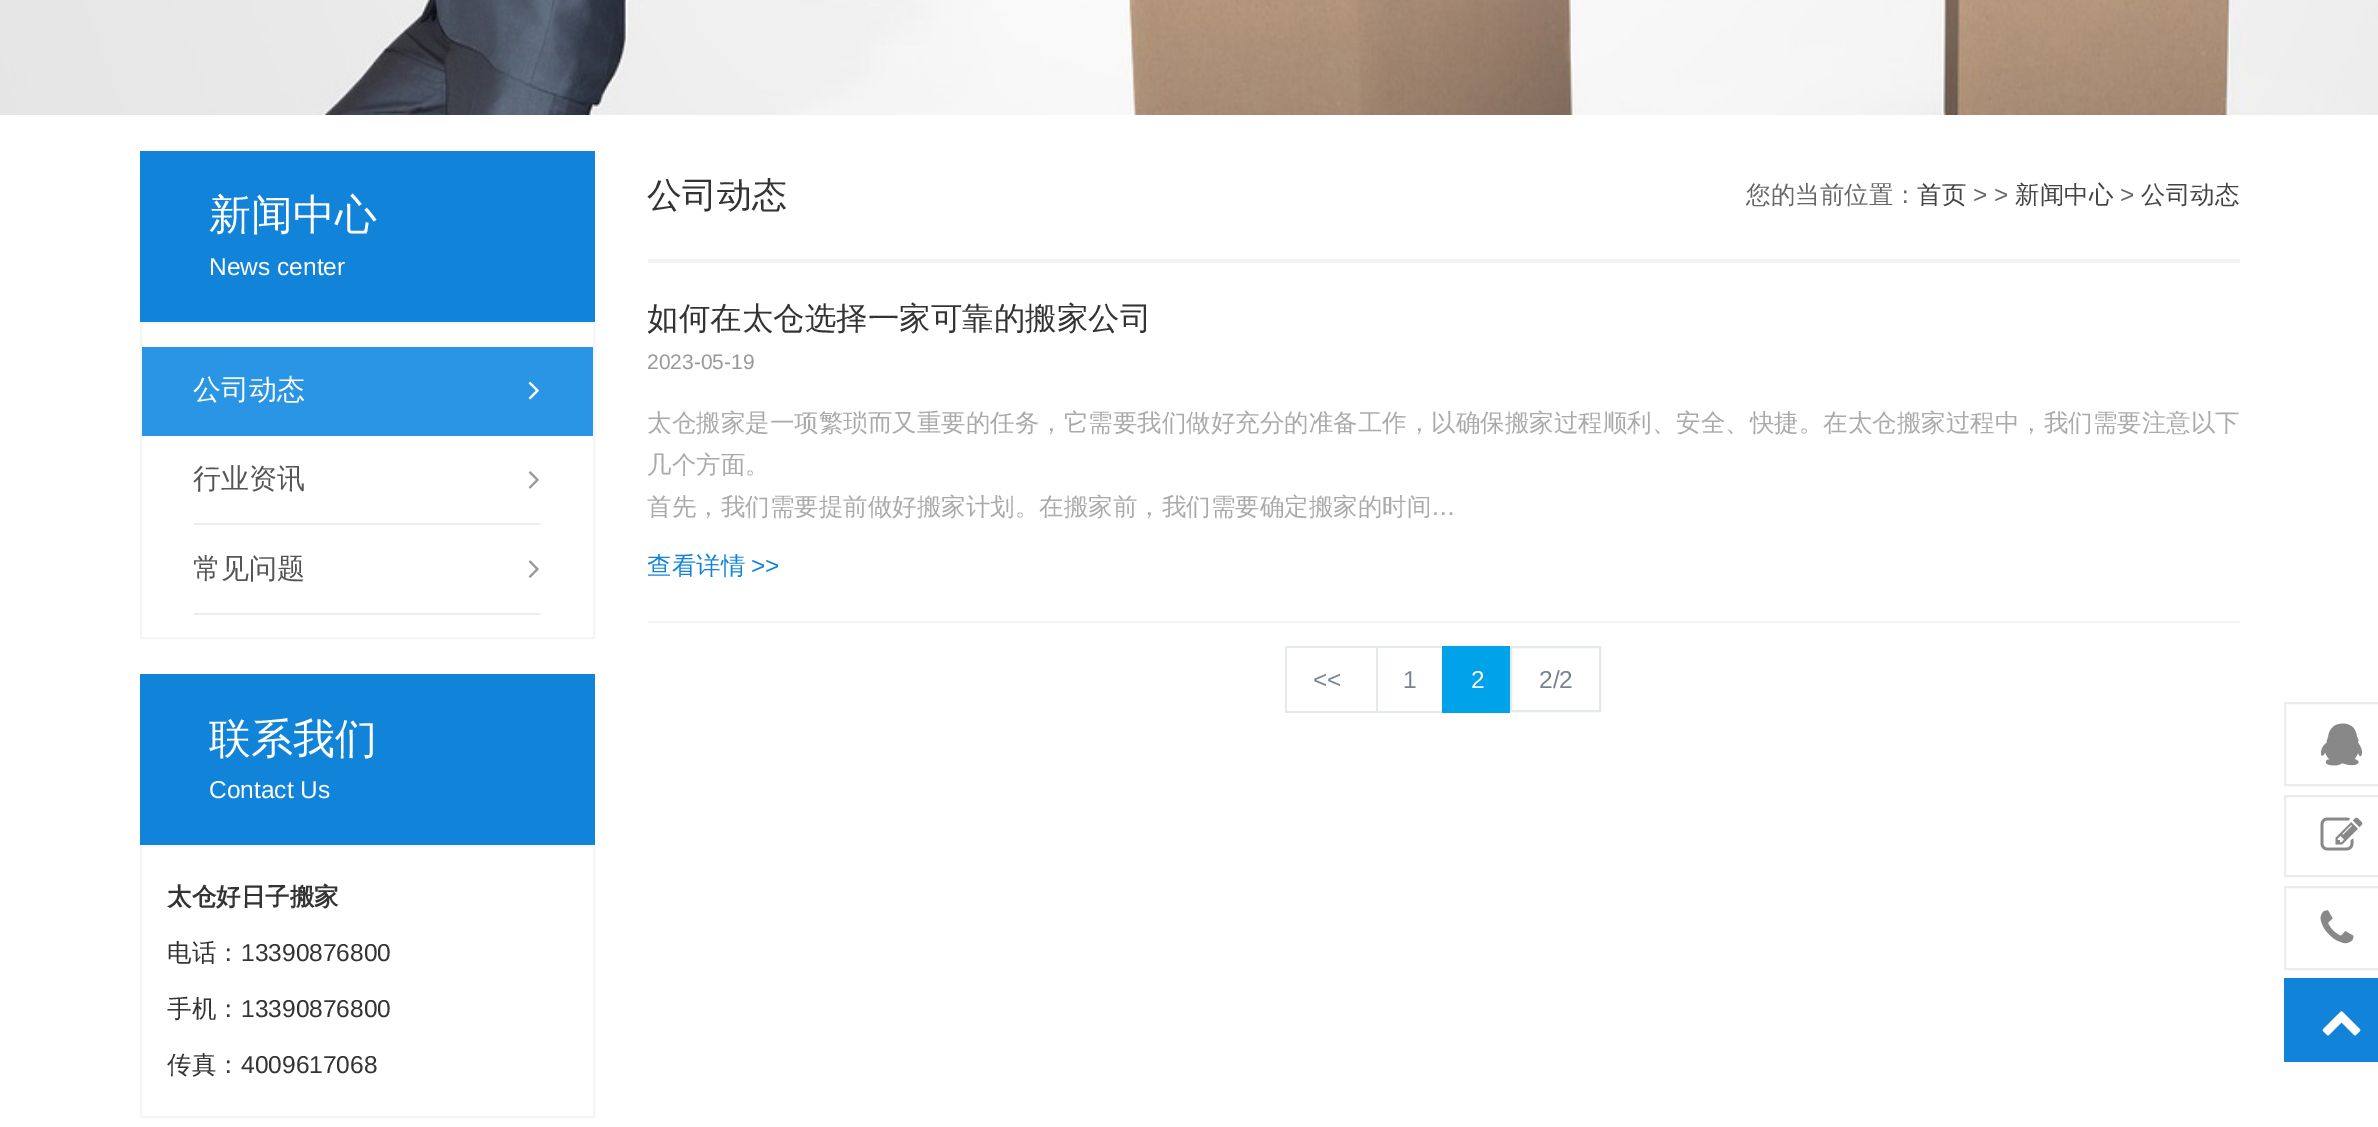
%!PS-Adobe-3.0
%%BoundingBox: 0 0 2378 1127
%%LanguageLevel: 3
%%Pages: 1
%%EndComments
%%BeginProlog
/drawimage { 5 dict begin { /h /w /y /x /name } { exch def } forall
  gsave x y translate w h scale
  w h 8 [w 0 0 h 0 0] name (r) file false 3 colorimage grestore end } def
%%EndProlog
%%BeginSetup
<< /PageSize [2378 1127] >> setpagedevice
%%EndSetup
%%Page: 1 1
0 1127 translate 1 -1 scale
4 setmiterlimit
1 setgray
0 0 2378 1127 rectfill
(images/1.raw) 0 0 2378 115 drawimage
0.067 0.518 0.855 setrgbcolor
140 151 455 171 rectfill
0.961 setgray
2 setlinewidth
141 323 453 315 rectstroke
0.165 0.584 0.898 setrgbcolor
142 347 451 89 rectfill
(images/2.raw) 528 381 11 19 drawimage
0.933 setgray
194 523 347 2 rectfill
(images/3.raw) 528 471 11 18 drawimage
194 613 347 2 rectfill
(images/4.raw) 528 560 11 18 drawimage
0.067 0.518 0.855 setrgbcolor
140 674 455 171 rectfill
0.961 setgray
141 846 453 271 rectstroke
0.953 setgray
648 259 1592 4 rectfill
648 621 1592 2 rectfill
0.894 0.918 0.925 setrgbcolor
1285 646 157 2 rectfill
1285 711 157 2 rectfill
1285 646 2 66 rectfill
1376 646 2 66 rectfill
0 0.635 0.914 setrgbcolor
1442 646 68 67 rectfill
0.894 0.918 0.925 setrgbcolor
1511 647 89 64 rectstroke
0.925 setgray
2285 703 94 82 rectstroke
(images/5.raw) 2320 723 43 43 drawimage
2285 796 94 80 rectstroke
(images/6.raw) 2320 817 43 34 drawimage
2285 887 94 82 rectstroke
(images/7.raw) 2320 910 34 34 drawimage
0.067 0.518 0.855 setrgbcolor
2284 978 94 84 rectfill
(images/8.raw) 2322 1011 39 25 drawimage
/WenQuanYiZenHei-Medium [42 0 0 -42 0 0] selectfont
1 setgray
209 229 moveto (新闻中心) show
/LiberationSans-Regular [24.5 0 0 -24.5 0 0] selectfont
209 275 moveto (News center) show
/WenQuanYiZenHei-Medium [28 0 0 -28 0 0] selectfont
193 399 moveto (公司动态) show
0.333 setgray
193 488 moveto (行业资讯) show
193 578 moveto (常见问题) show
/WenQuanYiZenHei-Medium [42 0 0 -42 0 0] selectfont
1 setgray
209 753 moveto (联系我们) show
/LiberationSans-Regular [24.5 0 0 -24.5 0 0] selectfont
209 798 moveto (Contact Us) show
/WenQuanYiZenHei-Bold [24.5 0 0 -24.5 0 0] selectfont
0.2 setgray
167 905 moveto (太仓好日子搬家) show
/WenQuanYiZenHei-Medium [24.5 0 0 -24.5 0 0] selectfont
167 961 moveto (电话：) show
/LiberationSans-Regular [24.5 0 0 -24.5 0 0] selectfont
241 961 moveto (13390876800) show
/WenQuanYiZenHei-Medium [24.5 0 0 -24.5 0 0] selectfont
167 1017 moveto (手机：) show
/LiberationSans-Regular [24.5 0 0 -24.5 0 0] selectfont
241 1017 moveto (13390876800) show
/WenQuanYiZenHei-Medium [24.5 0 0 -24.5 0 0] selectfont
167 1073 moveto (传真：) show
/LiberationSans-Regular [24.5 0 0 -24.5 0 0] selectfont
241 1073 moveto (4009617068) show
/WenQuanYiZenHei-Medium [35 0 0 -35 0 0] selectfont
647 207 moveto (公司动态) show
/WenQuanYiZenHei-Medium [24.5 0 0 -24.5 0 0] selectfont
0.4 setgray
1746 203 moveto (您的当前位置：) show
0.267 setgray
1917 203 moveto (首页) show
/LiberationSans-Regular [24.5 0 0 -24.5 0 0] selectfont
0.4 setgray
1973 203 moveto (> >) show
/WenQuanYiZenHei-Medium [24.5 0 0 -24.5 0 0] selectfont
0.267 setgray
2015 203 moveto (新闻中心) show
/LiberationSans-Regular [24.5 0 0 -24.5 0 0] selectfont
0.4 setgray
2120 203 moveto (>) show
/WenQuanYiZenHei-Medium [24.5 0 0 -24.5 0 0] selectfont
0.267 setgray
2141 203 moveto (公司动态) show
gsave
648 298 1592 43 rectclip
/WenQuanYiZenHei-Medium [31.5 0 0 -31.5 0 0] selectfont
0.2 setgray
647 329 moveto (如何在太仓选择一家可靠的搬家公司) show
grestore
gsave
648 298 1592 323 rectclip
/LiberationSans-Regular [21 0 0 -21 0 0] selectfont
0.6 setgray
647 369 moveto (2023-05-19) show
grestore
0.667 setgray
647 431 moveto (太仓搬家是一项繁琐而又重要的任务，它需要我们做好充分的准备工作，以确保搬家过程顺利、安全、快捷。在太仓搬家过程中，我们需要注意以下) show
647 473 moveto (几个方面。) show
647 515 moveto (首先，我们需要提前做好搬家计划。在搬家前，我们需要确定搬家的时间) show
/LiberationSans-Regular [24.5 0 0 -24.5 0 0] selectfont
1431 515 moveto (…) show
gsave
648 298 1592 323 rectclip
/WenQuanYiZenHei-Medium [24.5 0 0 -24.5 0 0] selectfont
0.067 0.518 0.855 setrgbcolor
647 574 moveto (查看详情) show
grestore
0.067 0.518 0.855 setrgbcolor
751 574 moveto (>>) show
0.463 0.514 0.561 setrgbcolor
1313 688 moveto (<<) show
1403 688 moveto (1) show
1 setgray
1471 688 moveto (2) show
0.463 0.514 0.561 setrgbcolor
1539 688 moveto (2/2) show
showpage
%%EOF
